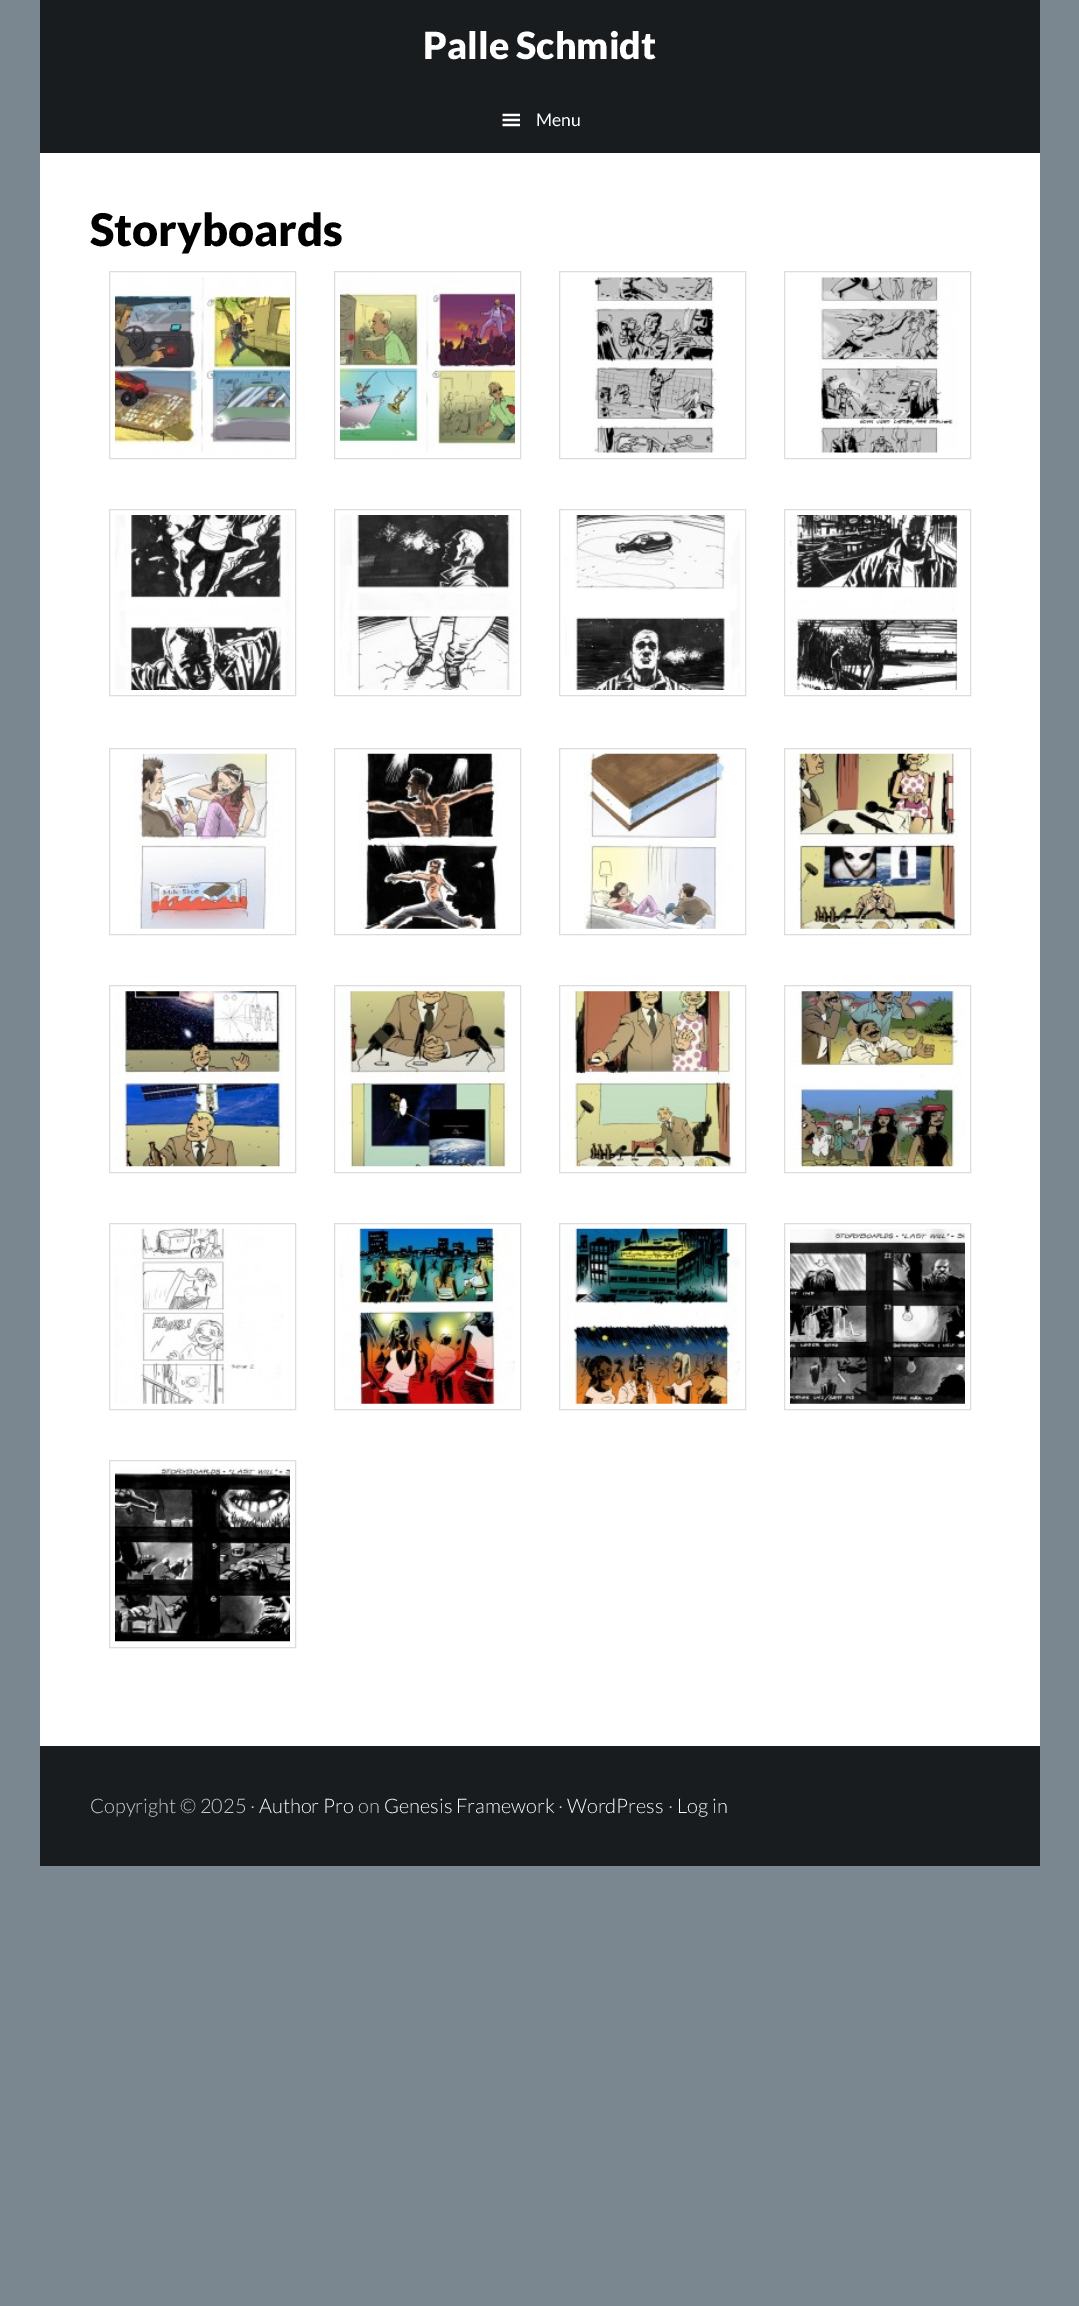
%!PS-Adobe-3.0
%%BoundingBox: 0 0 1079 2306
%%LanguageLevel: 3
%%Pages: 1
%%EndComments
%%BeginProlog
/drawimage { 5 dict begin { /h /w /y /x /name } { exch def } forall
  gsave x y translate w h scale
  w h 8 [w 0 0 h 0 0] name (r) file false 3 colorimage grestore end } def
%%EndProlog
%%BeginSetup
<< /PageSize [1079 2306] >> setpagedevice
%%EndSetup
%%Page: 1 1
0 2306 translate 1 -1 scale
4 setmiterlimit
0.478 0.525 0.565 setrgbcolor
0 0 1079 2306 rectfill
0.094 0.11 0.118 setrgbcolor
40 0 1000 153 rectfill
(images/1.raw) 502 113 18 14 drawimage
1 setgray
40 153 1000 1593 rectfill
0.867 setgray
109.5 271.5 186 187 rectstroke
(images/2.raw) 115 277 175 176 drawimage
334.5 271.5 186 187 rectstroke
(images/3.raw) 340 278 175 175 drawimage
559.5 271.5 186 187 rectstroke
(images/4.raw) 593 277 125 176 drawimage
784.5 271.5 186 187 rectstroke
(images/5.raw) 818 277 140 176 drawimage
109.5 509.5 186 186 rectstroke
(images/6.raw) 115 515 175 175 drawimage
334.5 509.5 186 186 rectstroke
(images/7.raw) 340 515 175 175 drawimage
559.5 509.5 186 186 rectstroke
(images/8.raw) 565 515 175 175 drawimage
784.5 509.5 186 186 rectstroke
(images/9.raw) 790 515 168 175 drawimage
109.5 748.5 186 186 rectstroke
(images/10.raw) 133 753 150 176 drawimage
334.5 748.5 186 186 rectstroke
(images/11.raw) 358 753 145 176 drawimage
559.5 748.5 186 186 rectstroke
(images/12.raw) 583 753 150 176 drawimage
784.5 748.5 186 186 rectstroke
(images/13.raw) 790 753 168 176 drawimage
109.5 985.5 186 187 rectstroke
(images/14.raw) 115 991 169 176 drawimage
334.5 985.5 186 187 rectstroke
(images/15.raw) 340 991 168 176 drawimage
559.5 985.5 186 187 rectstroke
(images/16.raw) 565 991 168 176 drawimage
784.5 985.5 186 187 rectstroke
(images/17.raw) 790 991 175 176 drawimage
109.5 1223.5 186 186 rectstroke
(images/18.raw) 115 1228 168 176 drawimage
334.5 1223.5 186 186 rectstroke
(images/19.raw) 340 1228 175 176 drawimage
559.5 1223.5 186 186 rectstroke
(images/20.raw) 565 1228 175 176 drawimage
784.5 1223.5 186 186 rectstroke
(images/21.raw) 790 1228 175 176 drawimage
109.5 1460.5 186 187 rectstroke
(images/22.raw) 115 1466 175 176 drawimage
0.094 0.11 0.118 setrgbcolor
40 1746 1000 120 rectfill
/Lato-Black [37.5 0 0 -37.5 0 0] selectfont
1 setgray
423 59 moveto (Palle Schmidt) show
/Lato-Regular [17.5 0 0 -17.5 0 0] selectfont
536 126 moveto (Menu) show
/Lato-Black [45 0 0 -45 0 0] selectfont
0 setgray
90 246 moveto (Storyboards) show
/Lato-Light [20 0 0 -20 0 0] selectfont
0.8 setgray
90 1813 moveto (Copyright © 2025 ·) show
1 setgray
259 1813 moveto (Author Pro) show
0.8 setgray
358 1813 moveto (on) show
1 setgray
384 1813 moveto (Genesis Framework) show
0.8 setgray
558 1813 moveto (·) show
1 setgray
567 1813 moveto (WordPress) show
0.8 setgray
668 1813 moveto (·) show
1 setgray
677 1813 moveto (Log in) show
showpage
%%EOF
